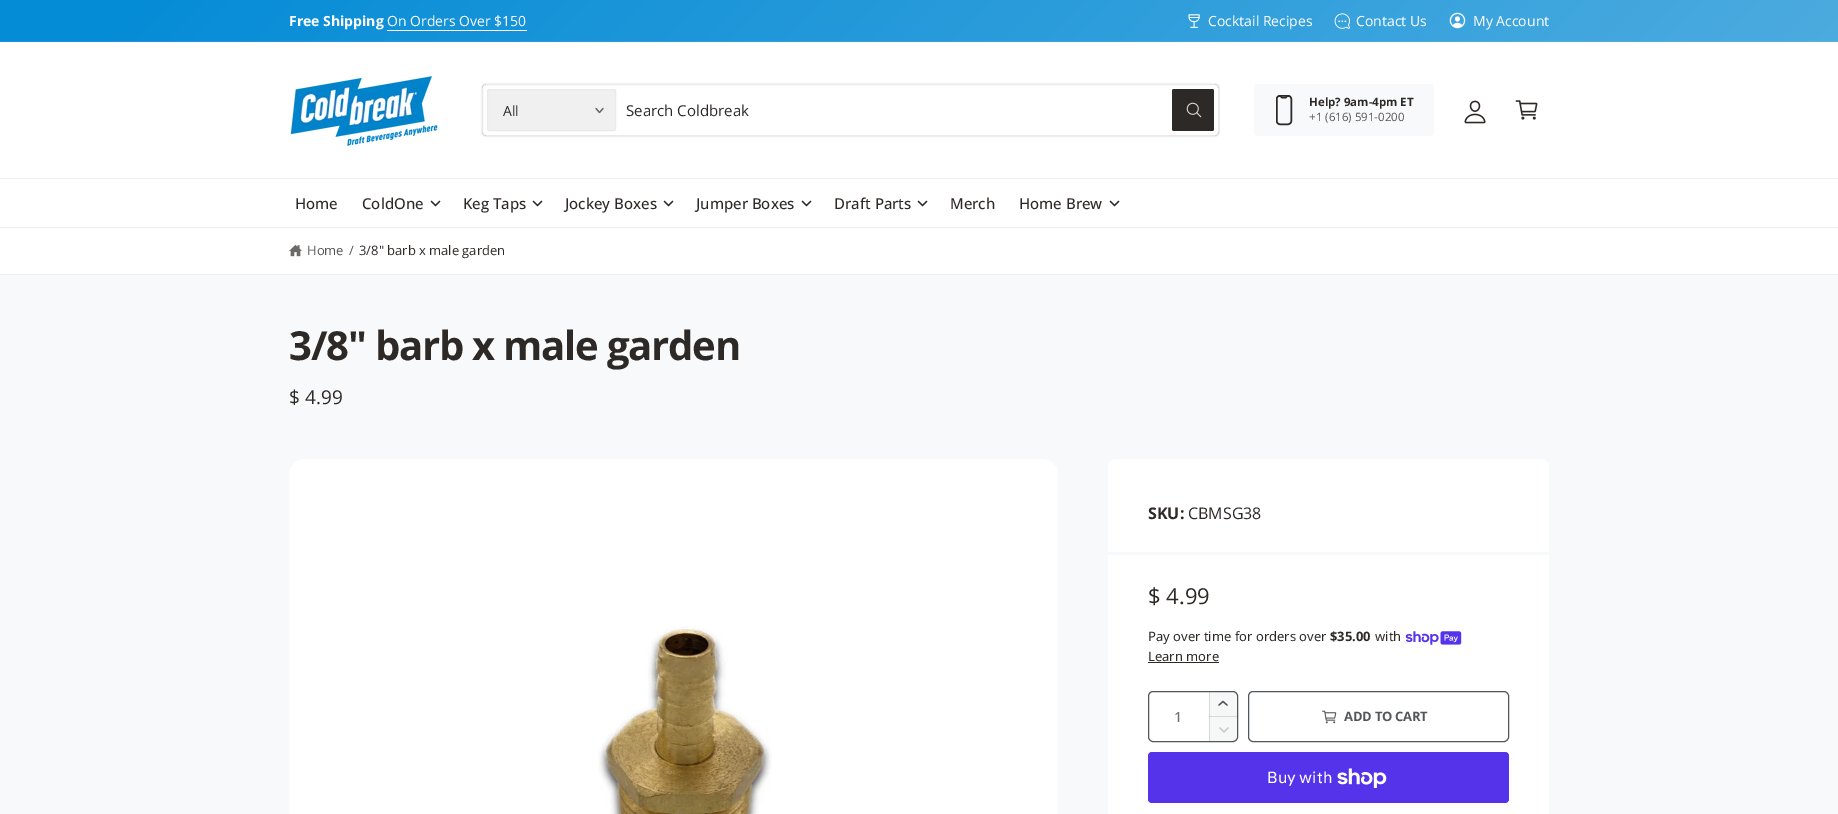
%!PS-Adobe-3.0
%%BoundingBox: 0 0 1838 814
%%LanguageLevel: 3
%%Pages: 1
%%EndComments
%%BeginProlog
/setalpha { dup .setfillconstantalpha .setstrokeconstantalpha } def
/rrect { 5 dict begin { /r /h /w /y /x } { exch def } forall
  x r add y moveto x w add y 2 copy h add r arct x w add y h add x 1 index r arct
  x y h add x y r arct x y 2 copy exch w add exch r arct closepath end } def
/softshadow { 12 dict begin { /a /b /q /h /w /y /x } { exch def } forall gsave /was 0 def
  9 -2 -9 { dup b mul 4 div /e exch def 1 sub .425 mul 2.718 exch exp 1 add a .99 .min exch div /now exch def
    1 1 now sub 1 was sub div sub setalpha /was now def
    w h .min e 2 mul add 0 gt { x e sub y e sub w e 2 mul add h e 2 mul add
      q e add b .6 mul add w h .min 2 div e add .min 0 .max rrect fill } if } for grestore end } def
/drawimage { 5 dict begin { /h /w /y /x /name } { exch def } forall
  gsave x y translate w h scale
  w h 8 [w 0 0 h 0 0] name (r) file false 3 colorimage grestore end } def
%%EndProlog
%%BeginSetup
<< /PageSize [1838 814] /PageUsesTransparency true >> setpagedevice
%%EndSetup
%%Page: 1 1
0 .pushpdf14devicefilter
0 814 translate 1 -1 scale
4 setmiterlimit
0.973 0.976 0.98 setrgbcolor
0 0 1838 814 rectfill
gsave newpath 0 0 moveto 1838 0 lineto 1838 41 lineto 0 41 lineto closepath clip newpath
<< /ShadingType 2 /ColorSpace /DeviceRGB /Coords [256 -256 1582 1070] /Extend [true true] /Function << /FunctionType 3 /Domain [0 1] /Functions [<< /FunctionType 2 /Domain [0 1] /C0 [0.016 0.549 0.839] /C1 [0.016 0.549 0.839] /N 1 >> << /FunctionType 2 /Domain [0 1] /C0 [0.016 0.549 0.839] /C1 [0.42 0.722 0.89] /N 1 >>] /Bounds [0.04] /Encode [0 1 0 1] >> >> shfill grestore
gsave newpath 0 41 moveto 1838 41 lineto 1838 42 lineto 0 42 lineto closepath clip newpath
<< /ShadingType 2 /ColorSpace /DeviceRGB /Coords [256 -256 1582 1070] /Extend [true true] /Function << /FunctionType 3 /Domain [0 1] /Functions [<< /FunctionType 2 /Domain [0 1] /C0 [0.094 0.584 0.851] /C1 [0.094 0.584 0.851] /N 1 >> << /FunctionType 2 /Domain [0 1] /C0 [0.094 0.584 0.851] /C1 [0.467 0.745 0.898] /N 1 >>] /Bounds [0.04] /Encode [0 1 0 1] >> >> shfill grestore
1 setgray
387 30 140 1 rectfill
(images/1.raw) 1188 14 12 14 drawimage
(images/2.raw) 1334 13 16 16 drawimage
(images/3.raw) 1449 12 17 17 drawimage
0 42 1838 185 rectfill
(images/4.raw) 290 76 148 70 drawimage
0.941 setgray
487.5 89.5 128 41 1.5 rrect gsave fill grestore
0.918 setgray
stroke
0.408 0.396 0.388 setrgbcolor
1.2 setlinewidth
1 setlinecap
1 setlinejoin
newpath 596 108.5 moveto 599.5 112.5 lineto 603 108.5 lineto stroke
0.176 0.161 0.149 setrgbcolor
1172 89 42 42 2 rrect fill
(images/5.raw) 1186 102 16 16 drawimage
gsave
newpath 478 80 moveto 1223 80 lineto 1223 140 lineto 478 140 lineto closepath 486 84 moveto 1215 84 lineto 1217 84 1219 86 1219 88 curveto 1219 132 lineto 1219 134 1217 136 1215 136 curveto 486 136 lineto 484 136 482 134 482 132 curveto 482 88 lineto 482 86 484 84 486 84 curveto closepath eoclip newpath
0 setgray
482 84 737 52 4 1 0.15 softshadow
grestore
0.1 setalpha
1 setlinewidth
0 setlinecap
0 setlinejoin
482.5 84.5 736 51 3.5 rrect stroke
1 setalpha
0.973 0.976 0.98 setrgbcolor
1254 84 180 52 4 rrect fill
0.176 0.161 0.149 setrgbcolor
1.5 setlinewidth
1276.75 95.75 14.5 28.5 3.25 rrect stroke
1.4 setlinewidth
1 setlinecap
1 setlinejoin
newpath 1279.5 96 moveto 1282.5 96 1280.5 97.5 1282 97.5 curveto 1286 97.5 lineto 1287 96 lineto 1288.5 96 lineto stroke
(images/6.raw) 1464 100 22 24 drawimage
(images/7.raw) 1515 100 23 20 drawimage
0.933 setgray
0 178 1838 1 rectfill
0 227 1838 1 rectfill
0.176 0.161 0.149 setrgbcolor
newpath 431.5 201.5 moveto 435.5 205.5 lineto 439.5 201.5 lineto stroke
newpath 533.5 201.5 moveto 537.5 205.5 lineto 541.5 201.5 lineto stroke
newpath 664.5 201.5 moveto 668.5 205.5 lineto 672.5 201.5 lineto stroke
newpath 802.5 201.5 moveto 806.5 205.5 lineto 810.5 201.5 lineto stroke
newpath 918.5 201.5 moveto 922.5 205.5 lineto 926.5 201.5 lineto stroke
newpath 1110.5 201.5 moveto 1114.5 205.5 lineto 1118.5 201.5 lineto stroke
1 setgray
0 228 1838 46 rectfill
0.933 setgray
0 274 1838 1 rectfill
(images/8.raw) 289 244 13 13 drawimage
1 setgray
289 459 769 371 16 rrect fill
(images/9.raw) 598 626 174 188 drawimage
1108 459 441 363 8 rrect fill
0.973 0.976 0.98 setrgbcolor
1108 552 441 3 rectfill
(images/10.raw) 1405 631 57 14 drawimage
0.176 0.161 0.149 setrgbcolor
1148 662 71 1 rectfill
0.965 0.969 0.969 setrgbcolor
newpath 1209 691 moveto 1233 691 lineto 1235 691 1237 693 1237 695 curveto 1237 717 lineto 1209 717 lineto closepath fill
0.835 0.843 0.847 setrgbcolor
1209 691 1 26 rectfill
1209 716 28 1 rectfill
0.733 0.741 0.749 setrgbcolor
1209 716 1 1 rectfill
0.325 0.337 0.353 setrgbcolor
1.3 setlinewidth
newpath 1227 705 moveto 1223 701.5 lineto 1219 705 lineto stroke
0.965 0.969 0.969 setrgbcolor
newpath 1209 717 moveto 1237 717 lineto 1237 738 lineto 1237 740 1235 742 1233 742 curveto 1209 742 lineto closepath fill
0.835 0.843 0.847 setrgbcolor
1209 717 1 25 rectfill
0.773 0.78 0.784 setrgbcolor
newpath 1220 728 moveto 1224 732 lineto 1228 728 lineto stroke
1 setgray
1 setlinewidth
0 setlinecap
0 setlinejoin
1148.5 691.5 89 50 4.5 rrect stroke
0.325 0.337 0.353 setrgbcolor
1148.5 691.5 89 50 4.5 rrect stroke
(images/11.raw) 1322 710 15 14 drawimage
1248.5 691.5 260 50 4.5 rrect stroke
0.329 0.2 0.922 setrgbcolor
1148 752 361 51 4 rrect fill
(images/12.raw) 1337 768 50 20 drawimage
/OpenSans-Bold [14 0 0 -14 0 0] selectfont
1 setgray
289 26 moveto (Free Shipping) show
/OpenSans-Regular [14 0 0 -14 0 0] selectfont
387 26 moveto (On Orders Over $150) show
1208 26 moveto (Cocktail Recipes) show
1356 26 moveto (Contact Us) show
1473 26 moveto (My Account) show
0.176 0.161 0.149 setrgbcolor
503 116 moveto (All) show
/OpenSans-Regular [15 0 0 -15 0 0] selectfont
626 116 moveto (Search Coldbreak) show
/OpenSans-Bold [11.5 0 0 -11.5 0 0] selectfont
1309 106 moveto (Help? 9am-4pm ET) show
/OpenSans-Regular [11.5 0 0 -11.5 0 0] selectfont
0.341 0.329 0.318 setrgbcolor
1309 121 moveto (+1 \(616\) 591-0200) show
/OpenSans-Medium [15 0 0 -15 0 0] selectfont
0.176 0.161 0.149 setrgbcolor
295 209 moveto (Home) show
362 209 moveto (ColdOne) show
463 209 moveto (Keg Taps) show
565 209 moveto (Jockey Boxes) show
696 209 moveto (Jumper Boxes) show
834 209 moveto (Draft Parts) show
950 209 moveto (Merch) show
1019 209 moveto (Home Brew) show
/OpenSans-Regular [13 0 0 -13 0 0] selectfont
0.341 0.329 0.318 setrgbcolor
307 255 moveto (Home) show
349 255 moveto (/) show
0.176 0.161 0.149 setrgbcolor
359 255 moveto (3/8" barb x male garden) show
/OpenSans-Bold [40 0 0 -40 0 0] selectfont
289 360 moveto -1.2 0 (3/8" barb x male garden) ashow
/OpenSans-Regular [19 0 0 -19 0 0] selectfont
289 404 moveto ($ 4.99) show
/OpenSans-Bold [16 0 0 -16 0 0] selectfont
1148 519 moveto (SKU:) show
/OpenSans-Regular [16 0 0 -16 0 0] selectfont
1188 519 moveto (CBMSG38) show
/OpenSans-Regular [22 0 0 -22 0 0] selectfont
1148 604 moveto ($ 4.99) show
/NotoSans-Regular [13 0 0 -13 0 0] selectfont
1148 641 moveto (Pay over time for orders over) show
/NotoSans-Bold [13 0 0 -13 0 0] selectfont
1330 641 moveto ($35.00) show
/NotoSans-Regular [13 0 0 -13 0 0] selectfont
1375 641 moveto (with) show
1148 661 moveto (Learn more) show
/OpenSans-Medium [14 0 0 -14 0 0] selectfont
0.427 0.435 0.451 setrgbcolor
1174 722 moveto (1) show
/OpenSans-Bold [13 0 0 -13 0 0] selectfont
0.325 0.337 0.353 setrgbcolor
1344 721 moveto -0.25 0 (ADD TO CART) ashow
/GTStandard-Regular [16 0 0 -16 0 0] selectfont
1 setgray
1267 783 moveto (Buy with) show
.poppdf14devicefilter showpage
%%EOF
